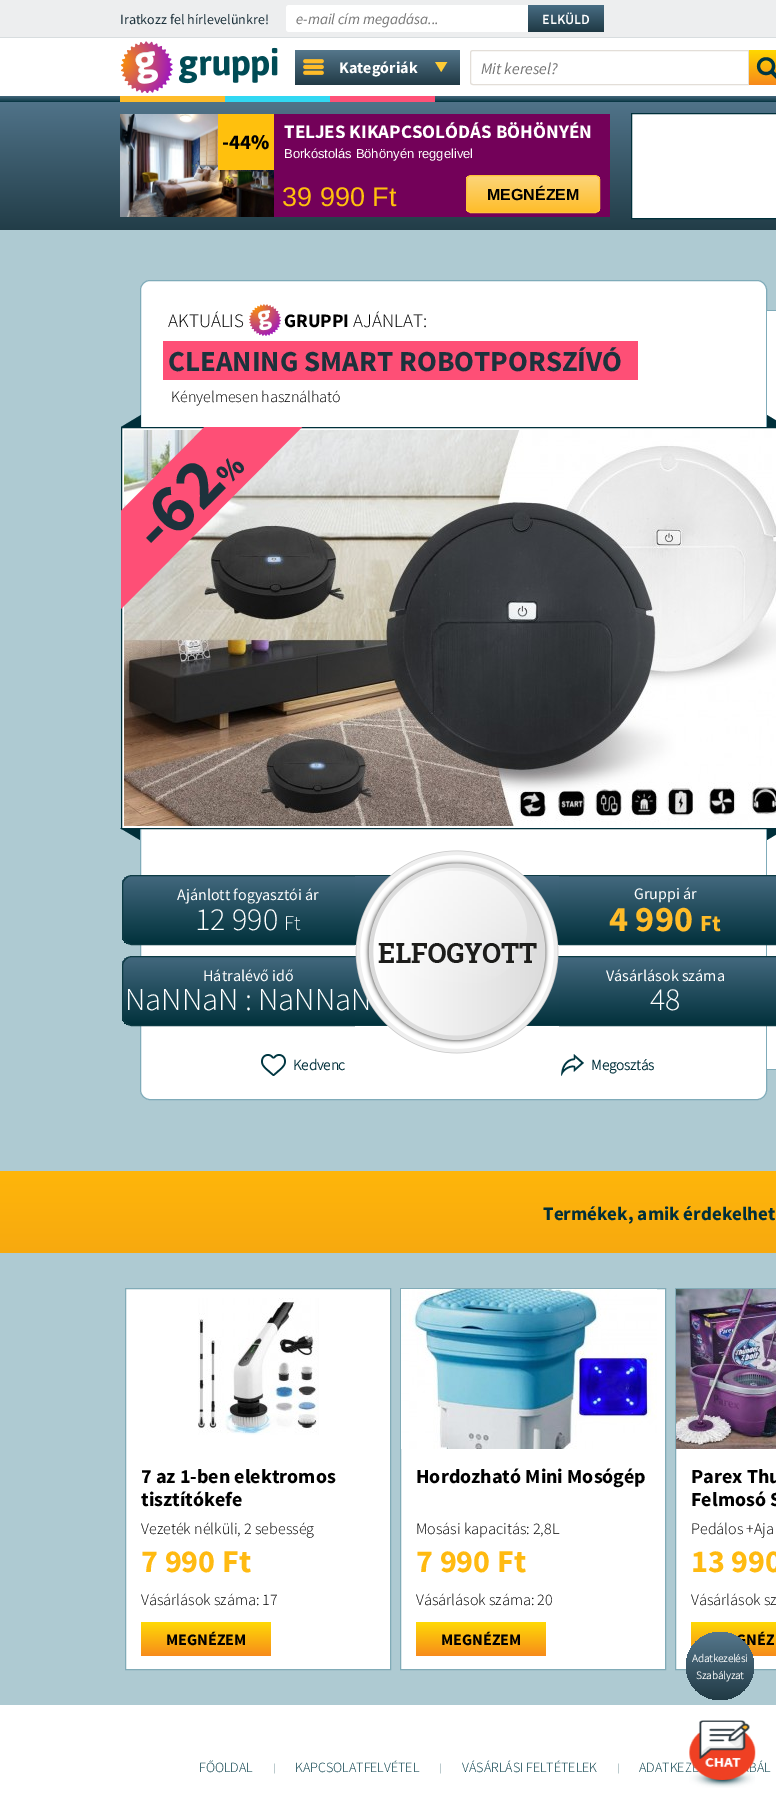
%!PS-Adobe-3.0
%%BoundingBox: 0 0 776 1810
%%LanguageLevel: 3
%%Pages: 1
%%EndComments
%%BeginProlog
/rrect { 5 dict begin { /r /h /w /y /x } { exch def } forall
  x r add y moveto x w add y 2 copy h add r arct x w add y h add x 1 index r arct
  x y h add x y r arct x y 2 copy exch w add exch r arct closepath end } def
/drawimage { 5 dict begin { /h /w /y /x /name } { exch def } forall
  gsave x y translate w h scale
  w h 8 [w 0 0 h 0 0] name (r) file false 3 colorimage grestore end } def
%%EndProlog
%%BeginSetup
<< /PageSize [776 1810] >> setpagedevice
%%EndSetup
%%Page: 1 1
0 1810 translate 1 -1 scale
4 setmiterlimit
0.682 0.792 0.824 setrgbcolor
0 0 776 1810 rectfill
0.929 0.933 0.937 setrgbcolor
0 0 776 37 rectfill
0.847 0.867 0.875 setrgbcolor
0 37 776 1 rectfill
1 setgray
newpath 289 5 moveto 528 5 lineto 528 32 lineto 289 32 lineto 287.5 32 286 30.5 286 29 curveto 286 8 lineto 286 6.5 287.5 5 289 5 curveto closepath fill
gsave newpath 528 5 moveto 601 5 lineto 602.5 5 604 6.5 604 8 curveto 604 29 lineto 604 30.5 602.5 32 601 32 curveto 528 32 lineto closepath clip newpath
<< /ShadingType 2 /ColorSpace /DeviceRGB /Coords [566 5 566 32] /Extend [true true] /Function << /FunctionType 2 /Domain [0 1] /C0 [0.282 0.427 0.518] /C1 [0.122 0.224 0.267] /N 1 >> >> shfill grestore
0 38 776 58 rectfill
(images/1.raw) 120 41 158 52 drawimage
gsave newpath 295 50 moveto 460 50 lineto 460 85 lineto 295 85 lineto closepath clip newpath
<< /ShadingType 2 /ColorSpace /DeviceRGB /Coords [378 50 378 85] /Extend [true true] /Function << /FunctionType 2 /Domain [0 1] /C0 [0.333 0.467 0.549] /C1 [0.129 0.227 0.271] /N 1 >> >> shfill grestore
(images/2.raw) 303 59 21 16 drawimage
(images/3.raw) 435 62 13 10 drawimage
0.89 0.871 0.847 setrgbcolor
newpath 473 50.5 moveto 748.5 50.5 lineto 748.5 84.5 lineto 473 84.5 lineto 471.5 84.5 470.5 83.5 470.5 82 curveto 470.5 53 lineto 470.5 51.5 471.5 50.5 473 50.5 curveto closepath stroke
gsave newpath 749 50 moveto 776 50 lineto 776 85 lineto 749 85 lineto closepath clip newpath
<< /ShadingType 2 /ColorSpace /DeviceRGB /Coords [768 50 768 85] /Extend [true true] /Function << /FunctionType 2 /Domain [0 1] /C0 [1 0.847 0] /C1 [0.969 0.537 0.106] /N 1 >> >> shfill grestore
(images/4.raw) 756 57 20 22 drawimage
gsave newpath 0 96 moveto 776 96 lineto 776 102 lineto 0 102 lineto closepath clip newpath
<< /ShadingType 2 /ColorSpace /DeviceRGB /Coords [670 96 670 102] /Extend [true true] /Function << /FunctionType 2 /Domain [0 1] /C0 [0.263 0.4 0.482] /C1 [0.039 0.22 0.271] /N 1 >> >> shfill grestore
1 0.737 0.161 setrgbcolor
120 96 105 6 rectfill
0.192 0.847 0.953 setrgbcolor
225 96 105 6 rectfill
1 0.318 0.467 setrgbcolor
330 96 105 6 rectfill
gsave newpath 0 102 moveto 776 102 lineto 776 230 lineto 0 230 lineto closepath clip newpath
<< /ShadingType 2 /ColorSpace /DeviceRGB /Coords [670 102 670 230] /Extend [true true] /Function << /FunctionType 2 /Domain [0 1] /C0 [0.314 0.451 0.537] /C1 [0.133 0.239 0.282] /N 1 >> >> shfill grestore
0.451 0.004 0.349 setrgbcolor
274 114 336 103 rectfill
(images/5.raw) 120 114 154 103 drawimage
1 0.753 0.051 setrgbcolor
218 114 56 56 rectfill
gsave
466 175 134 38 5 rrect clip newpath
gsave newpath 466 176 moveto 600 176 lineto 600 212 lineto 466 212 lineto closepath clip newpath
<< /ShadingType 2 /ColorSpace /DeviceRGB /Coords [533 176 533 212] /Extend [true true] /Function << /FunctionType 2 /Domain [0 1] /C0 [0.988 0.835 0.475] /C1 [1 0.741 0.165] /N 1 >> >> shfill grestore
grestore
1 0.757 0.227 setrgbcolor
466.5 175.5 133 37 4.5 rrect stroke
1 setgray
newpath 631.5 113.5 moveto 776.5 113.5 lineto 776.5 218.5 lineto 631.5 218.5 lineto closepath gsave fill grestore
0 0.188 0.231 setrgbcolor
stroke
1 setgray
140.5 280.5 626 819 9.5 rrect gsave fill grestore
0.498 0.671 0.725 setrgbcolor
stroke
(images/6.raw) 249 304 32 32 drawimage
0.996 0.31 0.463 setrgbcolor
163 341 475 39 rectfill
0 0.184 0.227 setrgbcolor
newpath 141 427 moveto 121 427 lineto 141 415 lineto closepath fill
1 setgray
767 311 9 758 rectfill
0.498 0.671 0.725 setrgbcolor
newpath 767 310 moveto 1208 310 lineto 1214 310 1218 314 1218 320 curveto 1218 1060 lineto 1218 1066 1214 1070 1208 1070 curveto 767 1070 lineto closepath 767 311 moveto 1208 311 lineto 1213 311 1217 315 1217 320 curveto 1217 1060 lineto 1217 1065 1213 1069 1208 1069 curveto 767 1069 lineto closepath eofill
0 0.184 0.227 setrgbcolor
newpath 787 427 moveto 767 427 lineto 767 415 lineto closepath fill
1 setgray
122 428 645 400 rectfill
0 0.188 0.231 setrgbcolor
121.5 427.5 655 401 rectstroke
(images/7.raw) 124 430 652 396 drawimage
gsave
121 427 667 451 rectclip
0.996 0.31 0.463 setrgbcolor
newpath 120 610 moveto 120 512 lineto 268 363 lineto 317 412 lineto closepath fill
grestore
0 0.184 0.227 setrgbcolor
newpath 120 828 moveto 140 828 lineto 140 840 lineto closepath fill
newpath 767 828 moveto 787 828 lineto 767 840 lineto closepath fill
gsave
newpath 132 875 moveto 456 875 lineto 456 945 lineto 132 945 lineto 126.5 945 122 940.5 122 935 curveto 122 885 lineto 122 879.5 126.5 875 132 875 curveto closepath clip newpath
gsave newpath 122 876 moveto 390 876 lineto 390 944 lineto 122 944 lineto closepath clip newpath
<< /ShadingType 2 /ColorSpace /DeviceRGB /Coords [289 876 289 944] /Extend [true true] /Function << /FunctionType 2 /Domain [0 1] /C0 [0.263 0.408 0.494] /C1 [0.004 0.196 0.235] /N 1 >> >> shfill grestore
grestore
0.051 0.231 0.267 setrgbcolor
newpath 132 875.5 moveto 455.5 875.5 lineto 455.5 944.5 lineto 132 944.5 lineto 127 944.5 122.5 940 122.5 935 curveto 122.5 885 lineto 122.5 880 127 875.5 132 875.5 curveto closepath stroke
gsave
newpath 132 956 moveto 456 956 lineto 456 1026 lineto 132 1026 lineto 126.5 1026 122 1021.5 122 1016 curveto 122 966 lineto 122 960.5 126.5 956 132 956 curveto closepath clip newpath
gsave newpath 122 957 moveto 387 957 lineto 387 1025 lineto 122 1025 lineto closepath clip newpath
<< /ShadingType 2 /ColorSpace /DeviceRGB /Coords [289 957 289 1025] /Extend [true true] /Function << /FunctionType 2 /Domain [0 1] /C0 [0.263 0.408 0.494] /C1 [0.004 0.196 0.235] /N 1 >> >> shfill grestore
grestore
newpath 132 956.5 moveto 455.5 956.5 lineto 455.5 1025.5 lineto 132 1025.5 lineto 127 1025.5 122.5 1021 122.5 1016 curveto 122.5 966 lineto 122.5 961 127 956.5 132 956.5 curveto closepath stroke
gsave newpath 524 876 moveto 776 876 lineto 776 944 lineto 524 944 lineto closepath clip newpath
<< /ShadingType 2 /ColorSpace /DeviceRGB /Coords [621 876 621 944] /Extend [true true] /Function << /FunctionType 2 /Domain [0 1] /C0 [0.267 0.412 0.498] /C1 [0.008 0.192 0.235] /N 1 >> >> shfill grestore
454.5 875.5 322 69 rectstroke
gsave newpath 527 957 moveto 776 957 lineto 776 1025 lineto 527 1025 lineto closepath clip newpath
<< /ShadingType 2 /ColorSpace /DeviceRGB /Coords [621 957 621 1025] /Extend [true true] /Function << /FunctionType 2 /Domain [0 1] /C0 [0.267 0.412 0.498] /C1 [0.008 0.192 0.235] /N 1 >> >> shfill grestore
454.5 956.5 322 69 rectstroke
(images/9.raw) 261 1054 25 22 drawimage
(images/10.raw) 561 1054 23 22 drawimage
gsave newpath 0 1171 moveto 776 1171 lineto 776 1253 lineto 0 1253 lineto closepath clip newpath
<< /ShadingType 2 /ColorSpace /DeviceRGB /Coords [670 1171 670 1253] /Extend [true true] /Function << /FunctionType 2 /Domain [0 1] /C0 [1 0.714 0.039] /C1 [0.969 0.663 0.059] /N 1 >> >> shfill grestore
1 setgray
newpath 125.5 1288.5 moveto 390.5 1288.5 lineto 390.5 1669.5 lineto 125.5 1669.5 lineto closepath gsave fill grestore
0.506 0.671 0.718 setrgbcolor
stroke
(images/11.raw) 198 1298 121 137 drawimage
gsave 141 1622 130 34 1 rrect clip newpath
<< /ShadingType 2 /ColorSpace /DeviceRGB /Coords [206 1622 206 1656] /Extend [true true] /Function << /FunctionType 2 /Domain [0 1] /C0 [1 0.855 0.024] /C1 [0.969 0.545 0.106] /N 1 >> >> shfill grestore
1 setgray
newpath 400.5 1288.5 moveto 665.5 1288.5 lineto 665.5 1669.5 lineto 400.5 1669.5 lineto closepath gsave fill grestore
0.506 0.671 0.718 setrgbcolor
stroke
(images/12.raw) 401 1289 256 160 drawimage
gsave 416 1622 130 34 1 rrect clip newpath
<< /ShadingType 2 /ColorSpace /DeviceRGB /Coords [481 1622 481 1656] /Extend [true true] /Function << /FunctionType 2 /Domain [0 1] /C0 [1 0.855 0.024] /C1 [0.969 0.545 0.106] /N 1 >> >> shfill grestore
1 setgray
676 1449 100 220 rectfill
0.506 0.671 0.718 setrgbcolor
675.5 1288.5 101 381 rectstroke
(images/13.raw) 676 1289 100 160 drawimage
gsave 691 1622 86 34 1 rrect clip newpath
<< /ShadingType 2 /ColorSpace /DeviceRGB /Coords [756 1622 756 1656] /Extend [true true] /Function << /FunctionType 2 /Domain [0 1] /C0 [1 0.855 0.024] /C1 [0.969 0.545 0.106] /N 1 >> >> shfill grestore
1 setgray
0 1705 776 105 rectfill
/SourceSansPro-Regular [14 0 0 -14 0 0] selectfont
0.114 0.196 0.235 setrgbcolor
120 24 moveto (Iratkozz fel hírlevelünkre!) show
/SourceSansPro-Italic [15 0 0 -15 0 0] selectfont
0.459 setgray
296 24 moveto (e-mail cím megadása...) show
/SourceSansPro-SemiBold [14 0 0 -14 0 0] selectfont
1 setgray
542 24 moveto (ELKÜLD) show
/SourceSansPro-Bold [16 0 0 -16 0 0] selectfont
339 73 moveto (Kategóriák) show
/SourceSansPro-Italic [16 0 0 -16 0 0] selectfont
0.459 setgray
481 74 moveto (Mit keresel?) show
/SourceSansPro-Bold [21 0 0 -21 0 0] selectfont
0 setgray
222 149 moveto (-44) show
/SourceSansPro-Black [21 0 0 -21 0 0] selectfont
251 149 moveto (%) show
gsave
284 117 316 21 rectclip
/SourceSansPro-Bold [19 0 0 -19 0 0] selectfont
1 setgray
284 138 moveto (TELJES KIKAPCSOLÓDÁS BÖHÖNYÉN) show
grestore
/LiberationSans-Regular [13 0 0 -13 0 0] selectfont
1 setgray
284 158 moveto (Borkóstolás Böhönyén reggelivel) show
/LiberationSans-Regular [27 0 0 -27 0 0] selectfont
1 0.753 0.051 setrgbcolor
282 206 moveto (39 990 Ft) show
/LiberationSans-Bold [16 0 0 -16 0 0] selectfont
0 setgray
487 200 moveto (MEGNÉZEM) show
/SourceSansPro-Light [19 0 0 -19 0 0] selectfont
168 327 moveto (AKTUÁLIS) show
/SourceSansPro-Bold [19 0 0 -19 0 0] selectfont
284 327 moveto (GRUPPI) show
/SourceSansPro-Light [19 0 0 -19 0 0] selectfont
353 327 moveto (AJÁNLAT:) show
/SourceSansPro-Bold [29 0 0 -29 0 0] selectfont
0.114 0.196 0.235 setrgbcolor
168 371 moveto (CLEANING SMART ROBOTPORSZÍVÓ) show
/SourceSansPro-Light [16 0 0 -16 0 0] selectfont
0 setgray
171 402 moveto (Kényelmesen használható) show
/SourceSansPro-Bold [70 0 0 -70 0 0] selectfont
0.114 0.196 0.235 setrgbcolor
gsave 159 555 translate -45 rotate 0 0 moveto (-62) show grestore
/SourceSansPro-Black [30 0 0 -30 0 0] selectfont
gsave 228 486 translate -45 rotate 0 0 moveto (%) show grestore
/SourceSansPro-Regular [16 0 0 -16 0 0] selectfont
1 setgray
177 900 moveto (Ajánlott fogyasztói ár) show
/SourceSansPro-Light [32 0 0 -32 0 0] selectfont
195 930 moveto (12 990) show
/SourceSansPro-Light [21 0 0 -21 0 0] selectfont
284 930 moveto (Ft) show
/SourceSansPro-Regular [16 0 0 -16 0 0] selectfont
203 981 moveto (Hátralévő idő) show
/SourceSansPro-Light [32 0 0 -32 0 0] selectfont
125 1010 moveto (NaNNaN : NaNNaN) show
(images/8.raw) 355 850 204 204 drawimage
/SourceSansPro-Regular [16 0 0 -16 0 0] selectfont
634 899 moveto (Gruppi ár) show
/SourceSansPro-Bold [36 0 0 -36 0 0] selectfont
1 0.737 0.161 setrgbcolor
609 931 moveto (4 990) show
/SourceSansPro-Bold [23 0 0 -23 0 0] selectfont
700 931 moveto (Ft) show
/SourceSansPro-Regular [16 0 0 -16 0 0] selectfont
1 setgray
606 981 moveto (Vásárlások száma) show
/SourceSansPro-Light [32 0 0 -32 0 0] selectfont
650 1010 moveto (48) show
/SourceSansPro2-Bold [15 0 0 -15 0 0] selectfont
0 0.184 0.227 setrgbcolor
293 1070 moveto (Kedvenc) show
591 1070 moveto (Megosztás) show
/SourceSansPro-Bold [19 0 0 -19 0 0] selectfont
543 1220 moveto (Termékek, amik érdekelhet) show
/SourceSansPro-Bold [20 0 0 -20 0 0] selectfont
0 setgray
141 1483 moveto (7 az 1-ben elektromos) show
141 1506 moveto (tisztítókefe) show
/SourceSansPro-Light [16 0 0 -16 0 0] selectfont
141 1534 moveto (Vezeték nélküli, 2 sebesség) show
/SourceSansPro-Bold [32 0 0 -32 0 0] selectfont
1 0.729 0.067 setrgbcolor
141 1572 moveto (7 990 Ft) show
/SourceSansPro-Light [16 0 0 -16 0 0] selectfont
0 setgray
141 1605 moveto (Vásárlások száma: 17) show
/SourceSansPro-Bold [16 0 0 -16 0 0] selectfont
166 1645 moveto (MEGNÉZEM) show
/SourceSansPro-Bold [20 0 0 -20 0 0] selectfont
416 1483 moveto (Hordozható Mini Mosógép) show
/SourceSansPro-Light [16 0 0 -16 0 0] selectfont
416 1534 moveto (Mosási kapacitás: 2,8L) show
/SourceSansPro-Bold [32 0 0 -32 0 0] selectfont
1 0.729 0.067 setrgbcolor
416 1572 moveto (7 990 Ft) show
/SourceSansPro-Light [16 0 0 -16 0 0] selectfont
0 setgray
416 1605 moveto (Vásárlások száma: 20) show
/SourceSansPro-Bold [16 0 0 -16 0 0] selectfont
441 1645 moveto (MEGNÉZEM) show
/SourceSansPro-Bold [20 0 0 -20 0 0] selectfont
691 1483 moveto (Parex Thu) show
691 1506 moveto (Felmosó S) show
/SourceSansPro-Light [16 0 0 -16 0 0] selectfont
691 1534 moveto (Pedálos +Aja) show
/SourceSansPro-Bold [32 0 0 -32 0 0] selectfont
1 0.729 0.067 setrgbcolor
691 1572 moveto (13 990) show
/SourceSansPro-Light [16 0 0 -16 0 0] selectfont
0 setgray
691 1605 moveto (Vásárlások sz) show
/SourceSansPro-Bold [16 0 0 -16 0 0] selectfont
736 1645 moveto (GNÉZ) show
gsave newpath 720 1666 34 0 360 arc closepath clip newpath
<< /ShadingType 2 /ColorSpace /DeviceRGB /Coords [720 1632 720 1700] /Extend [true true] /Function << /FunctionType 2 /Domain [0 1] /C0 [0.333 0.467 0.549] /C1 [0.129 0.227 0.271] /N 1 >> >> shfill grestore
/SourceSansPro2-Bold [11 0 0 -11 0 0] selectfont
1 setgray
692 1662 moveto (Adatkezelési) show
696 1679 moveto (Szabályzat) show
/SourceSansPro-Light [14 0 0 -14 0 0] selectfont
0 0.22 0.267 setrgbcolor
199 1772 moveto (FŐOLDAL) show
/SourceSansPro-Light [10 0 0 -10 0 0] selectfont
273 1771 moveto (|) show
/SourceSansPro-Light [14 0 0 -14 0 0] selectfont
295 1772 moveto (KAPCSOLATFELVÉTEL) show
/SourceSansPro-Light [10 0 0 -10 0 0] selectfont
439 1771 moveto (|) show
/SourceSansPro-Light [14 0 0 -14 0 0] selectfont
462 1772 moveto (VÁSÁRLÁSI FELTÉTELEK) show
/SourceSansPro-Light [10 0 0 -10 0 0] selectfont
617 1771 moveto (|) show
/SourceSansPro-Light [14 0 0 -14 0 0] selectfont
639 1772 moveto (ADATKEZ) show
757 1772 moveto (ÁL) show
(images/14.raw) 689 1720 67 68 drawimage
showpage
%%EOF
